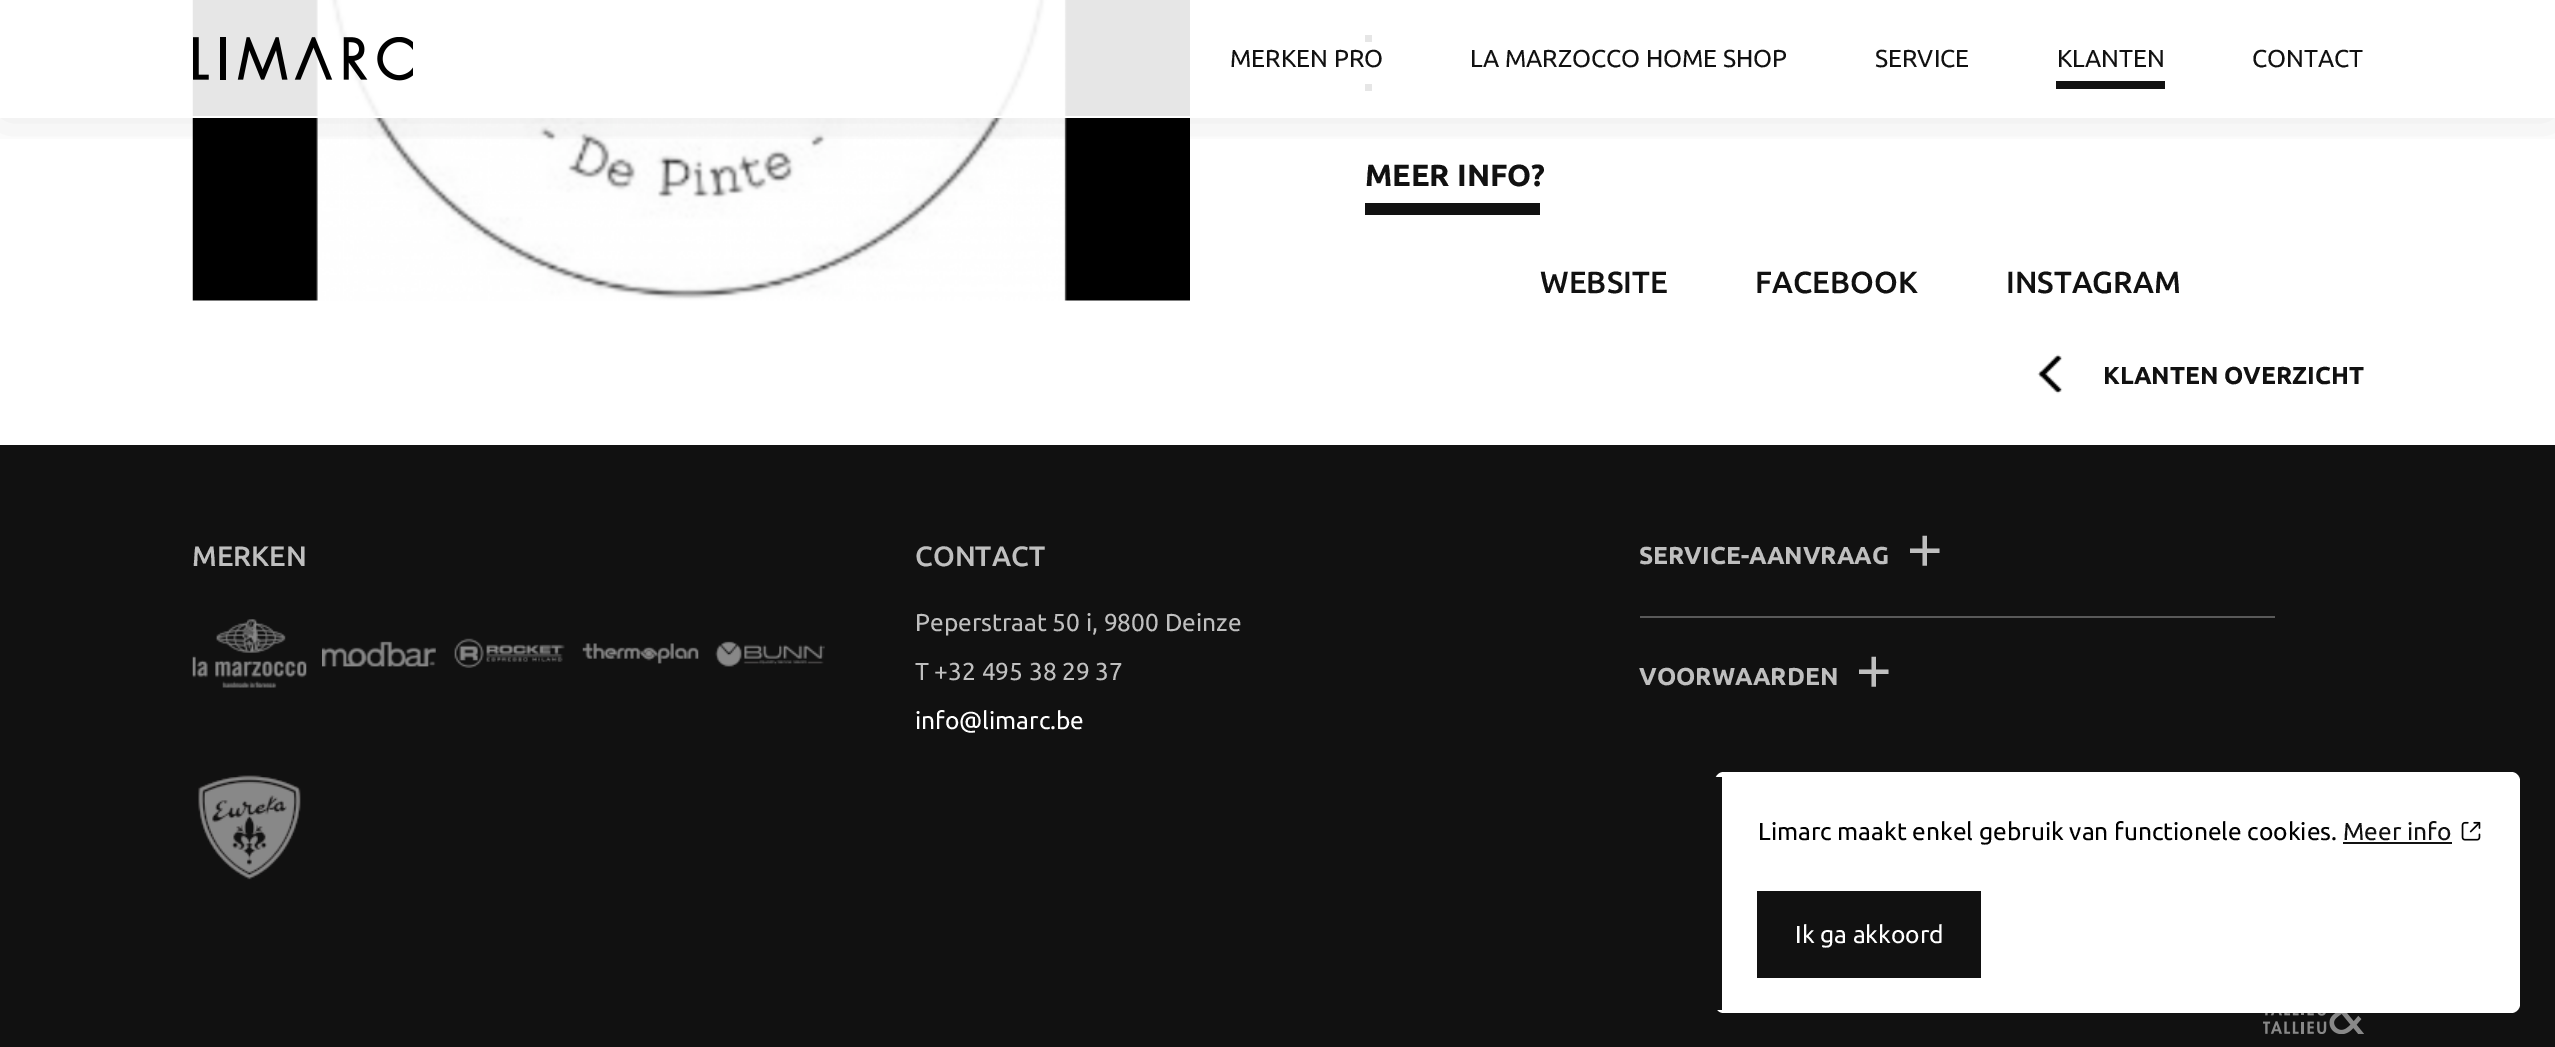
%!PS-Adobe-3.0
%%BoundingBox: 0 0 2555 1047
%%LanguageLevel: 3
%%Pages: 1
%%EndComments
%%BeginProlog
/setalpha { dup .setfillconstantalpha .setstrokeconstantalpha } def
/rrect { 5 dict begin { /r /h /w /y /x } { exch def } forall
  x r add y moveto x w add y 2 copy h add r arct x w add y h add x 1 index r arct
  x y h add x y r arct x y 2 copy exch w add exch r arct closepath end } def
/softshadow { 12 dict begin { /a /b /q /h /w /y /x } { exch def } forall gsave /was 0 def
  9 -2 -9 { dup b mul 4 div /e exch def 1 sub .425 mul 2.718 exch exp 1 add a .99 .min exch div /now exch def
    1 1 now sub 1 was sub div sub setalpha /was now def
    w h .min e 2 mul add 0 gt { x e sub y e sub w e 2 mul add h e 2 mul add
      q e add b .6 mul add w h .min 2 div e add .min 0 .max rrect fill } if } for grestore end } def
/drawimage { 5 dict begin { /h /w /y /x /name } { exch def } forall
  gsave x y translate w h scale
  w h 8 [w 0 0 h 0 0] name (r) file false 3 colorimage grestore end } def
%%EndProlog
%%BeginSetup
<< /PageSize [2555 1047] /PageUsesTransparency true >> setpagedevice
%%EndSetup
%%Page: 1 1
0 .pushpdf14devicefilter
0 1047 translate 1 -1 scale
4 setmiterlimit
1 setgray
0 0 2555 1047 rectfill
(images/2.raw) 192 0 998 301 drawimage
0 setgray
1365 35 7 7 rectfill
1365 84 7 7 rectfill
gsave
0 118 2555 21 rectclip
0.071 setgray
0 0 2555 117 0 26 0.1 softshadow
grestore
0.9 setalpha
1 setgray
192 0 1180 116 rectfill
1 setalpha
0 116 2555 2 rectfill
(images/1.raw) 193 37 220 44 drawimage
0.067 setgray
2056 81 109 8 rectfill
1365 203 175 12 rectfill
(images/3.raw) 2037 354 26 40 drawimage
0 445 2555 602 rectfill
(images/4.raw) 192 619 115 69 drawimage
(images/5.raw) 322 641 114 26 drawimage
(images/6.raw) 454 638 111 30 drawimage
(images/7.raw) 582 643 117 21 drawimage
(images/8.raw) 715 641 110 26 drawimage
(images/9.raw) 198 775 103 105 drawimage
0.349 setgray
1640 616 635 2 rectfill
(images/10.raw) 2263 1013 101 21 drawimage
1 setgray
1715 772 805 241 9 rrect fill
0.067 setgray
1715 777 7 233 rectfill
2343 842 109 2 rectfill
(images/11.raw) 2461 821 20 20 drawimage
1757 891 224 87 rectfill
/Ubuntu-Regular [24.5 0 0 -24.5 0 0] selectfont
1230 67 moveto (MERKEN PRO) show
1470 67 moveto (LA MARZOCCO HOME SHOP) show
1875 67 moveto (SERVICE) show
2057 67 moveto (KLANTEN) show
2252 67 moveto (CONTACT) show
/Ubuntu-Bold [30.5 0 0 -30.5 0 0] selectfont
1365 186 moveto (MEER INFO?) show
/Ubuntu-Medium [30.5 0 0 -30.5 0 0] selectfont
1540 293 moveto (WEBSITE) show
1755 293 moveto (FACEBOOK) show
2006 293 moveto (INSTAGRAM) show
/Ubuntu-Bold [24.5 0 0 -24.5 0 0] selectfont
2103 384 moveto (KLANTEN OVERZICHT) show
/Ubuntu-Medium [28 0 0 -28 0 0] selectfont
0.749 setgray
192 566 moveto (MERKEN) show
915 566 moveto (CONTACT) show
/Ubuntu-Regular [24.5 0 0 -24.5 0 0] selectfont
915 631 moveto (Peperstraat 50 i, 9800 Deinze) show
915 680 moveto (T +32 495 38 29 37) show
1 setgray
915 729 moveto (info@limarc.be) show
/Ubuntu-Bold [24.5 0 0 -24.5 0 0] selectfont
0.749 setgray
1639 564 moveto (SERVICE-AANVRAAG) show
/LiberationSans-Regular [61 0 0 -61 0 0] selectfont
1907 571 moveto (+) show
/Ubuntu-Bold [24.5 0 0 -24.5 0 0] selectfont
1639 685 moveto (VOORWAARDEN) show
/LiberationSans-Regular [61 0 0 -61 0 0] selectfont
1856 692 moveto (+) show
/Ubuntu-Regular [24.5 0 0 -24.5 0 0] selectfont
0 setgray
1758 840 moveto (Limarc maakt enkel gebruik van functionele cookies.) show
0.067 setgray
2343 840 moveto (Meer info) show
1 setgray
1795 943 moveto (Ik ga akkoord) show
.poppdf14devicefilter showpage
%%EOF
